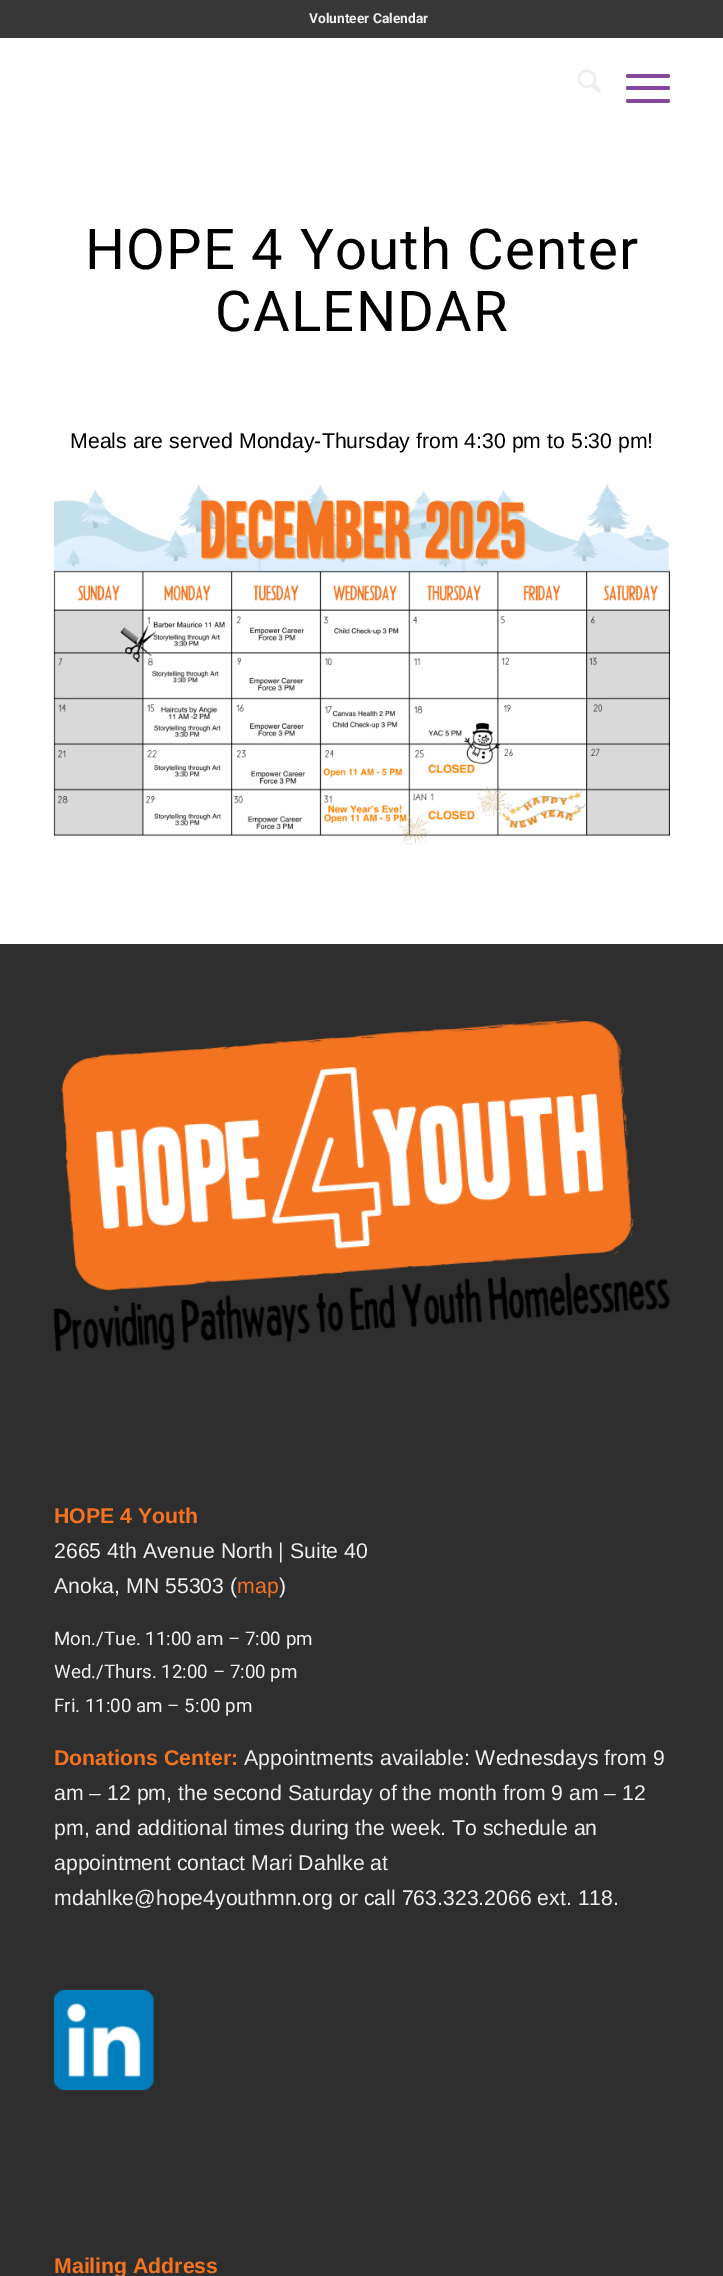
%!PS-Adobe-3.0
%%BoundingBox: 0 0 723 2276
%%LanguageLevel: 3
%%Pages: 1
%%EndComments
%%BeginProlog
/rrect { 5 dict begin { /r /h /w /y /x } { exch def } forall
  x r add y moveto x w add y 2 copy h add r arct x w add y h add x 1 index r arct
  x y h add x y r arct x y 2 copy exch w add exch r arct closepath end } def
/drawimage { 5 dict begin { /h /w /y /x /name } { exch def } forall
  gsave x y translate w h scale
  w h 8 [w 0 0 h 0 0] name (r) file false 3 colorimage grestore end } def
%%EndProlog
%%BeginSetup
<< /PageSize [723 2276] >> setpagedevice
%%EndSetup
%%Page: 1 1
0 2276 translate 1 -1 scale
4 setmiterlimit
1 setgray
0 0 723 2276 rectfill
0.22 setgray
0 0 723 38 rectfill
(images/1.raw) 578 69 23 24 drawimage
0.522 0.278 0.608 setrgbcolor
626 86 44 4 2 rrect fill
626 74 44 4 2 rrect fill
626 99 44 4 2 rrect fill
(images/2.raw) 53 484 617 361 drawimage
0.18 setgray
0 944 723 1332 rectfill
(images/3.raw) 54 1020 616 332 drawimage
(images/4.raw) 53 1990 101 100 drawimage
/Roboto-Bold [13.75 0 0 -13.75 0 0] selectfont
0.941 setgray
309 23 moveto (Volunteer Calendar) show
/Roboto-Regular [56.25 0 0 -56.25 0 0] selectfont
0 setgray
85 269 moveto 1.25 0 (HOPE 4 Youth Center) ashow
215 331 moveto 1.25 0 (CALENDAR) ashow
/LiberationSans-Regular [21.25 0 0 -21.25 0 0] selectfont
70 448 moveto (Meals are served Monday-Thursday from 4:30 pm to 5:30 pm!) show
/LiberationSans-Bold [21.25 0 0 -21.25 0 0] selectfont
0.953 0.451 0.129 setrgbcolor
54 1523 moveto (HOPE 4 Youth) show
/LiberationSans-Regular [21.25 0 0 -21.25 0 0] selectfont
0.941 setgray
54 1558 moveto (2665 4th Avenue North | Suite 40) show
54 1593 moveto (Anoka, MN 55303 \() show
0.953 0.451 0.129 setrgbcolor
237 1593 moveto (map) show
0.941 setgray
279 1593 moveto (\)) show
/Roboto-Regular [18.75 0 0 -18.75 0 0] selectfont
54 1645 moveto (Mon./Tue. 11:00 am – 7:00 pm) show
54 1678 moveto (Wed./Thurs. 12:00 – 7:00 pm) show
54 1712 moveto (Fri. 11:00 am – 5:00 pm) show
/LiberationSans-Bold [21.25 0 0 -21.25 0 0] selectfont
0.953 0.451 0.129 setrgbcolor
54 1765 moveto (Donations Center:) show
/LiberationSans-Regular [21.25 0 0 -21.25 0 0] selectfont
0.941 setgray
244 1765 moveto (Appointments available: Wednesdays from 9) show
54 1800 moveto (am – 12 pm, the second Saturday of the month from 9 am – 12) show
54 1835 moveto (pm, and additional times during the week. To schedule an) show
54 1870 moveto (appointment contact Mari Dahlke at) show
54 1905 moveto (mdahlke@hope4youthmn.org or call 763.323.2066 ext. 118.) show
/LiberationSans-Bold [21.25 0 0 -21.25 0 0] selectfont
0.953 0.451 0.129 setrgbcolor
54 2273 moveto (Mailing Address) show
showpage
%%EOF
